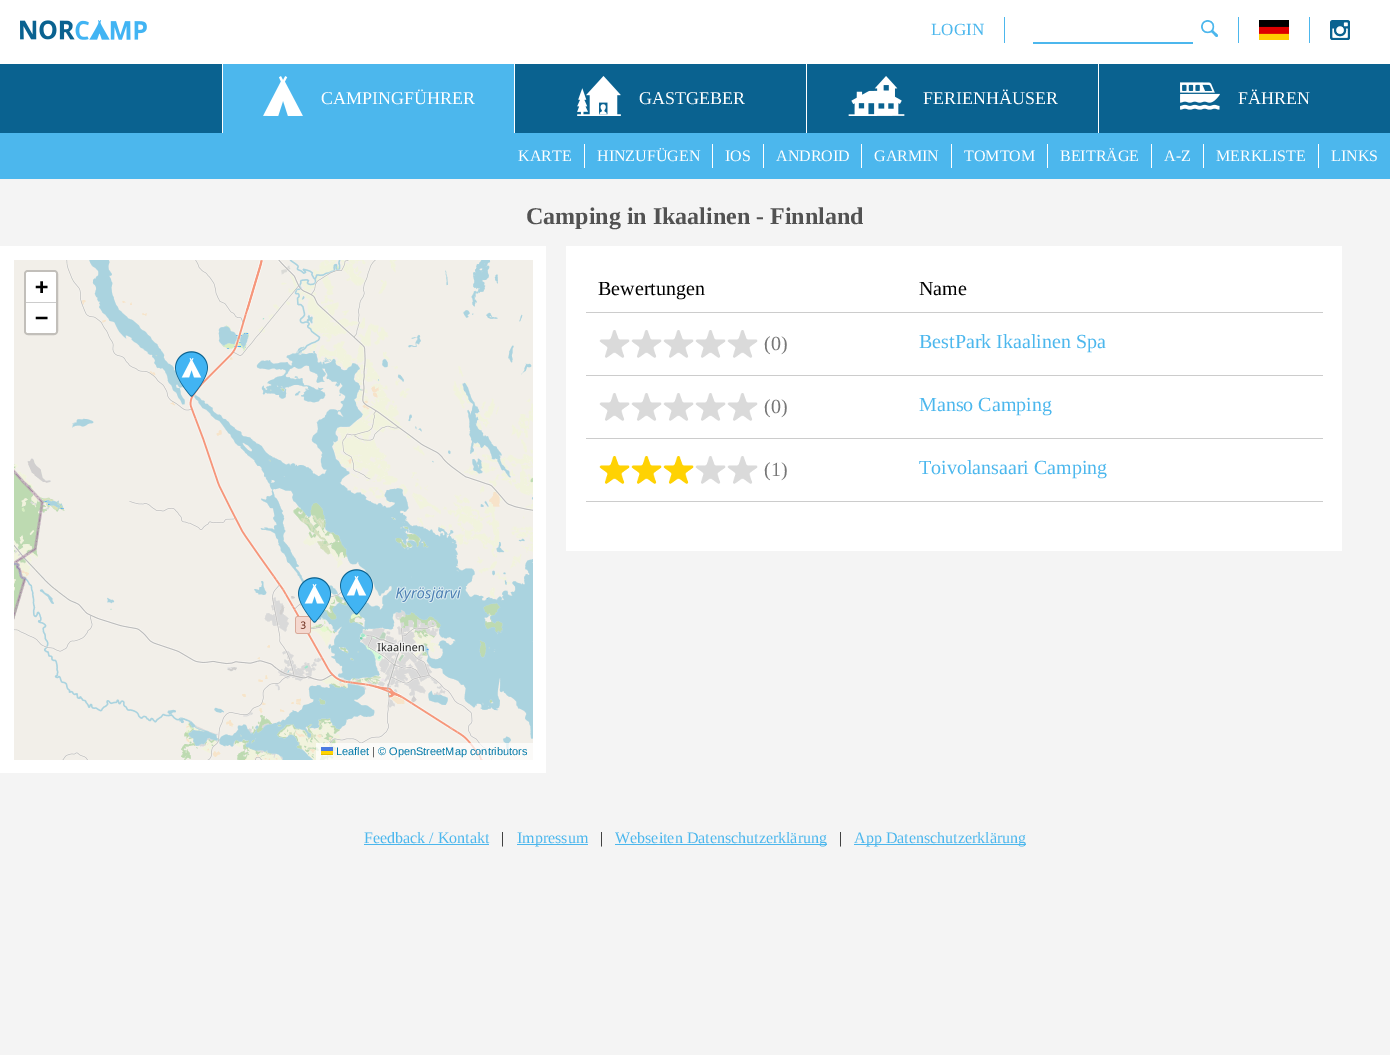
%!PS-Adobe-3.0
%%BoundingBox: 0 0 1390 1055
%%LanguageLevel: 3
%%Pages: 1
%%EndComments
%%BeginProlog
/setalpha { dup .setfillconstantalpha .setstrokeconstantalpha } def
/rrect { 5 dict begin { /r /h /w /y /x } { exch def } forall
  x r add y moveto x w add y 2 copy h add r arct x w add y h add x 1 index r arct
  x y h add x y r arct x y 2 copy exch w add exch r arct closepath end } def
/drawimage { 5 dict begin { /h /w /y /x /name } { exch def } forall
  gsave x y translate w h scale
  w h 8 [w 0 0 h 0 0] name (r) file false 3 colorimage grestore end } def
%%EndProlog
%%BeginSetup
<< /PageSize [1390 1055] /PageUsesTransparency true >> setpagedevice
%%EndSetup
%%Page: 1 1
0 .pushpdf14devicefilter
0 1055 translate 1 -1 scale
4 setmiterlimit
0.957 setgray
0 0 1390 1055 rectfill
1 setgray
0 0 1390 64 rectfill
(images/1.raw) 20 20 127 20 drawimage
0.298 0.718 0.929 setrgbcolor
1004 17 1 26 rectfill
(images/2.raw) 1201 20 17 17 drawimage
1033 42 160 2 rectfill
1238 17 1 26 rectfill
(images/3.raw) 1259 20 30 20 drawimage
1309 17 1 26 rectfill
(images/4.raw) 1330 20 20 20 drawimage
0.039 0.384 0.565 setrgbcolor
0 64 222 69 rectfill
0.298 0.718 0.929 setrgbcolor
223 64 291 69 rectfill
1 setgray
222 64 1 69 rectfill
(images/5.raw) 263 76 40 40 drawimage
0.039 0.384 0.565 setrgbcolor
515 64 291 69 rectfill
1 setgray
514 64 1 69 rectfill
(images/6.raw) 577 76 44 40 drawimage
0.039 0.384 0.565 setrgbcolor
807 64 291 69 rectfill
1 setgray
806 64 1 69 rectfill
(images/7.raw) 848 76 57 40 drawimage
0.039 0.384 0.565 setrgbcolor
1099 64 291 69 rectfill
1 setgray
1098 64 1 69 rectfill
(images/8.raw) 1180 82 40 28 drawimage
0.298 0.718 0.929 setrgbcolor
0 133 1390 46 rectfill
1 setgray
584 144 1 24 rectfill
712 144 1 24 rectfill
763 144 1 24 rectfill
861 144 1 24 rectfill
951 144 1 24 rectfill
1047 144 1 24 rectfill
1151 144 1 24 rectfill
1203 144 1 24 rectfill
1318 144 1 24 rectfill
0 246 546 527 rectfill
(images/9.raw) 14 260 62 116 drawimage
(images/10.raw) 76 260 256 116 drawimage
(images/11.raw) 332 260 201 116 drawimage
(images/12.raw) 14 376 62 256 drawimage
(images/13.raw) 76 376 256 256 drawimage
(images/14.raw) 332 376 201 256 drawimage
(images/15.raw) 14 632 62 128 drawimage
(images/16.raw) 76 632 256 128 drawimage
(images/17.raw) 332 632 201 128 drawimage
(images/18.raw) 175 351 33 46 drawimage
(images/19.raw) 298 577 33 46 drawimage
(images/20.raw) 340 569 33 46 drawimage
0.761 0.749 0.729 setrgbcolor
2 setlinewidth
25 271 32 63 3 rrect stroke
1 setgray
newpath 28 272 moveto 54 272 lineto 55 272 56 273 56 274 curveto 56 303 lineto 26 303 lineto 26 274 lineto 26 273 27 272 28 272 curveto closepath fill
0.8 setgray
26 302 30 1 rectfill
1 setgray
newpath 26 303 moveto 56 303 lineto 56 331 lineto 56 332 55 333 54 333 curveto 28 333 lineto 27 333 26 332 26 331 curveto closepath fill
0.7 setalpha
316 743 217 17 rectfill
1 setalpha
0.298 0.482 0.882 setrgbcolor
321 747 12 4 rectfill
1 0.835 0 setrgbcolor
321 751 12 3 rectfill
0.878 0.737 0 setrgbcolor
321 754 12 1 rectfill
1 setgray
566 246 776 305 rectfill
0.8 setgray
586 312 737 1 rectfill
586 375 737 1 rectfill
(images/21.raw) 599 330 31 28 drawimage
(images/21.raw) 631 330 31 28 drawimage
(images/21.raw) 663 330 31 28 drawimage
(images/21.raw) 695 330 31 28 drawimage
(images/21.raw) 727 330 31 28 drawimage
586 438 737 1 rectfill
(images/21.raw) 599 393 31 28 drawimage
(images/21.raw) 631 393 31 28 drawimage
(images/21.raw) 663 393 31 28 drawimage
(images/21.raw) 695 393 31 28 drawimage
(images/21.raw) 727 393 31 28 drawimage
586 501 737 1 rectfill
(images/22.raw) 599 456 31 28 drawimage
(images/22.raw) 631 456 31 28 drawimage
(images/22.raw) 663 456 31 28 drawimage
(images/21.raw) 695 456 31 28 drawimage
(images/21.raw) 727 456 31 28 drawimage
0.298 0.718 0.929 setrgbcolor
364 844 125 1 rectfill
517 844 71 1 rectfill
615 844 212 1 rectfill
854 844 172 1 rectfill
/LiberationSerif-Regular [17 0 0 -17 0 0] selectfont
931 35 moveto (LOGIN) show
/LiberationSerif-Regular [18 0 0 -18 0 0] selectfont
1 setgray
321 104 moveto (CAMPINGFÜHRER) show
639 104 moveto (GASTGEBER) show
923 104 moveto (FERIENHÄUSER) show
1238 104 moveto (FÄHREN) show
/LiberationSerif-Regular [16 0 0 -16 0 0] selectfont
518 161 moveto (KARTE) show
597 161 moveto (HINZUFÜGEN) show
725 161 moveto (IOS) show
776 161 moveto (ANDROID) show
874 161 moveto (GARMIN) show
964 161 moveto (TOMTOM) show
1060 161 moveto (BEITRÄGE) show
1164 161 moveto (A-Z) show
1216 161 moveto (MERKLISTE) show
1331 161 moveto (LINKS) show
/LiberationSerif-Bold [24 0 0 -24 0 0] selectfont
0.322 setgray
526 224 moveto (Camping in Ikaalinen - Finnland) show
/DejaVuSansMono-Bold [22 0 0 -22 0 0] selectfont
0 setgray
35 294 moveto (+) show
35 325 moveto (−) show
/LiberationSans-Regular [11 0 0 -11 0 0] selectfont
0 0.471 0.659 setrgbcolor
336 755 moveto (Leaflet) show
0.2 setgray
372 755 moveto (|) show
0 0.471 0.659 setrgbcolor
378 755 moveto (© OpenStreetMap contributors) show
/LiberationSerif-Regular [20 0 0 -20 0 0] selectfont
0 setgray
598 295 moveto (Bewertungen) show
919 295 moveto (Name) show
0.467 setgray
764 350 moveto (\(0\)) show
0.298 0.718 0.929 setrgbcolor
919 348 moveto (BestPark Ikaalinen Spa) show
0.467 setgray
764 413 moveto (\(0\)) show
0.298 0.718 0.929 setrgbcolor
919 411 moveto (Manso Camping) show
0.467 setgray
764 476 moveto (\(1\)) show
0.298 0.718 0.929 setrgbcolor
919 474 moveto (Toivolansaari Camping) show
/LiberationSerif-Regular [16 0 0 -16 0 0] selectfont
364 843 moveto (Feedback / Kontakt) show
0 setgray
501 843 moveto (|) show
0.298 0.718 0.929 setrgbcolor
517 843 moveto (Impressum) show
0 setgray
600 843 moveto (|) show
0.298 0.718 0.929 setrgbcolor
615 843 moveto (Webseiten Datenschutzerklärung) show
0 setgray
839 843 moveto (|) show
0.298 0.718 0.929 setrgbcolor
854 843 moveto (App Datenschutzerklärung) show
.poppdf14devicefilter showpage
%%EOF
